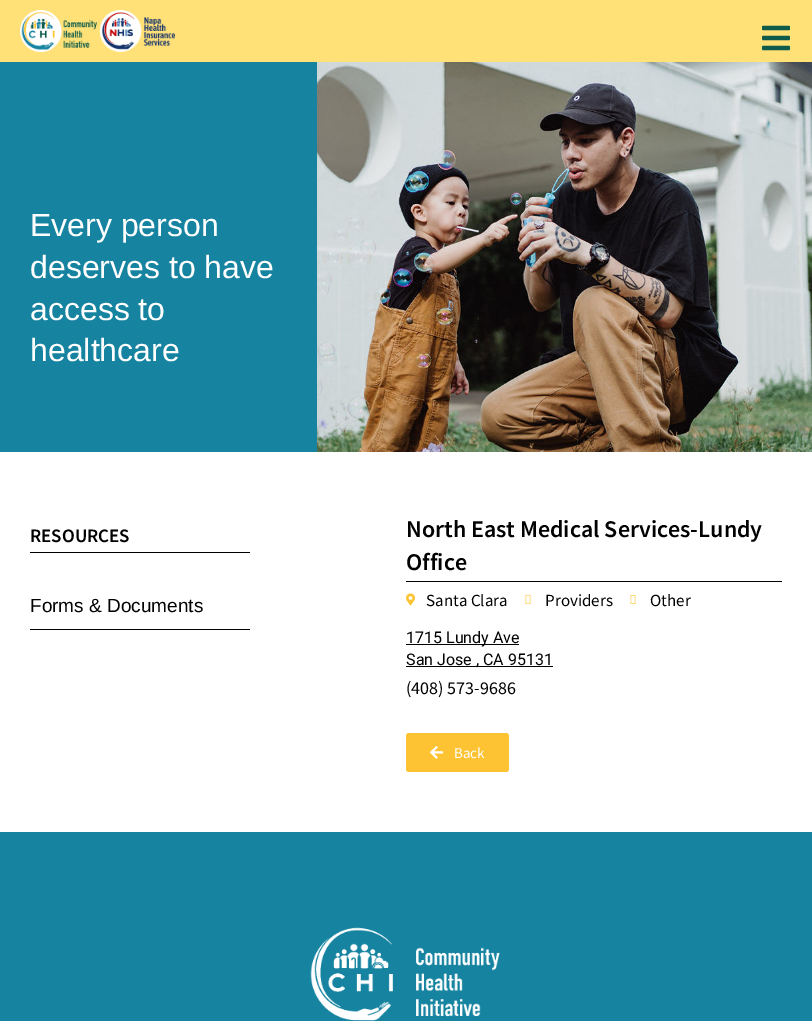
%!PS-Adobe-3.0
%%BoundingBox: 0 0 812 1021
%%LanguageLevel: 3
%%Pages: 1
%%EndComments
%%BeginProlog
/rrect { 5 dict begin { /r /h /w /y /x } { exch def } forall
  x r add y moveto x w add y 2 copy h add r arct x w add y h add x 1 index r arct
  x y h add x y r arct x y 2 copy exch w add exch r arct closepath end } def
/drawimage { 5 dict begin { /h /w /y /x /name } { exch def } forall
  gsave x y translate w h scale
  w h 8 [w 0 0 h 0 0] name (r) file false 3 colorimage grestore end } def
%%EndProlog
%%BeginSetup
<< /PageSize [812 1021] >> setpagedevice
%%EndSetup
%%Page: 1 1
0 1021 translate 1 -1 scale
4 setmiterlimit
1 setgray
0 0 812 1021 rectfill
1 0.882 0.467 setrgbcolor
0 0 812 62 rectfill
(images/1.raw) 20 10 155 42 drawimage
(images/2.raw) 762 25 28 26 drawimage
0.086 0.514 0.627 setrgbcolor
0 62 317 390 rectfill
(images/3.raw) 317 62 495 390 drawimage
0 setgray
30 552 220 1 rectfill
30 629 220 1 rectfill
406 581 376 1 rectfill
(images/4.raw) 406 593 9 13 drawimage
(images/5.raw) 525 595 6 9 drawimage
(images/5.raw) 630 595 6 9 drawimage
0.004 setgray
406 644 113 1 rectfill
406 666 147 1 rectfill
0.992 0.765 0.2 setrgbcolor
406 733 103 39 3 rrect fill
(images/6.raw) 430 746 14 13 drawimage
0.086 0.514 0.627 setrgbcolor
0 832 812 189 rectfill
(images/7.raw) 310 927 190 94 drawimage
/LiberationSans-Regular [32 0 0 -32 0 0] selectfont
1 setgray
30 236 moveto (Every person) show
30 278 moveto (deserves to have) show
30 320 moveto (access to) show
30 361 moveto (healthcare) show
/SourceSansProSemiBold-SemiBold [19 0 0 -19 0 0] selectfont
0.004 setgray
30 542 moveto (RESOURCES) show
/LiberationSans-Regular [19 0 0 -19 0 0] selectfont
30 612 moveto (Forms & Documents) show
/SourceSansProSemiBold-SemiBold [24 0 0 -24 0 0] selectfont
406 537 moveto (North East Medical Services-Lundy) show
406 570 moveto (Office) show
/SourceSansPro-Regular [17 0 0 -17 0 0] selectfont
426 606 moveto (Santa Clara) show
545 606 moveto (Providers) show
650 606 moveto (Other) show
/Roboto-Regular [16 0 0 -16 0 0] selectfont
406 643 moveto (1715 Lundy Ave) show
406 665 moveto (San Jose , CA 95131) show
/SourceSansPro-Regular [18 0 0 -18 0 0] selectfont
406 694 moveto (\(408\) 573-9686) show
/SourceSansPro-Regular [15 0 0 -15 0 0] selectfont
1 setgray
454 758 moveto (Back) show
showpage
%%EOF
